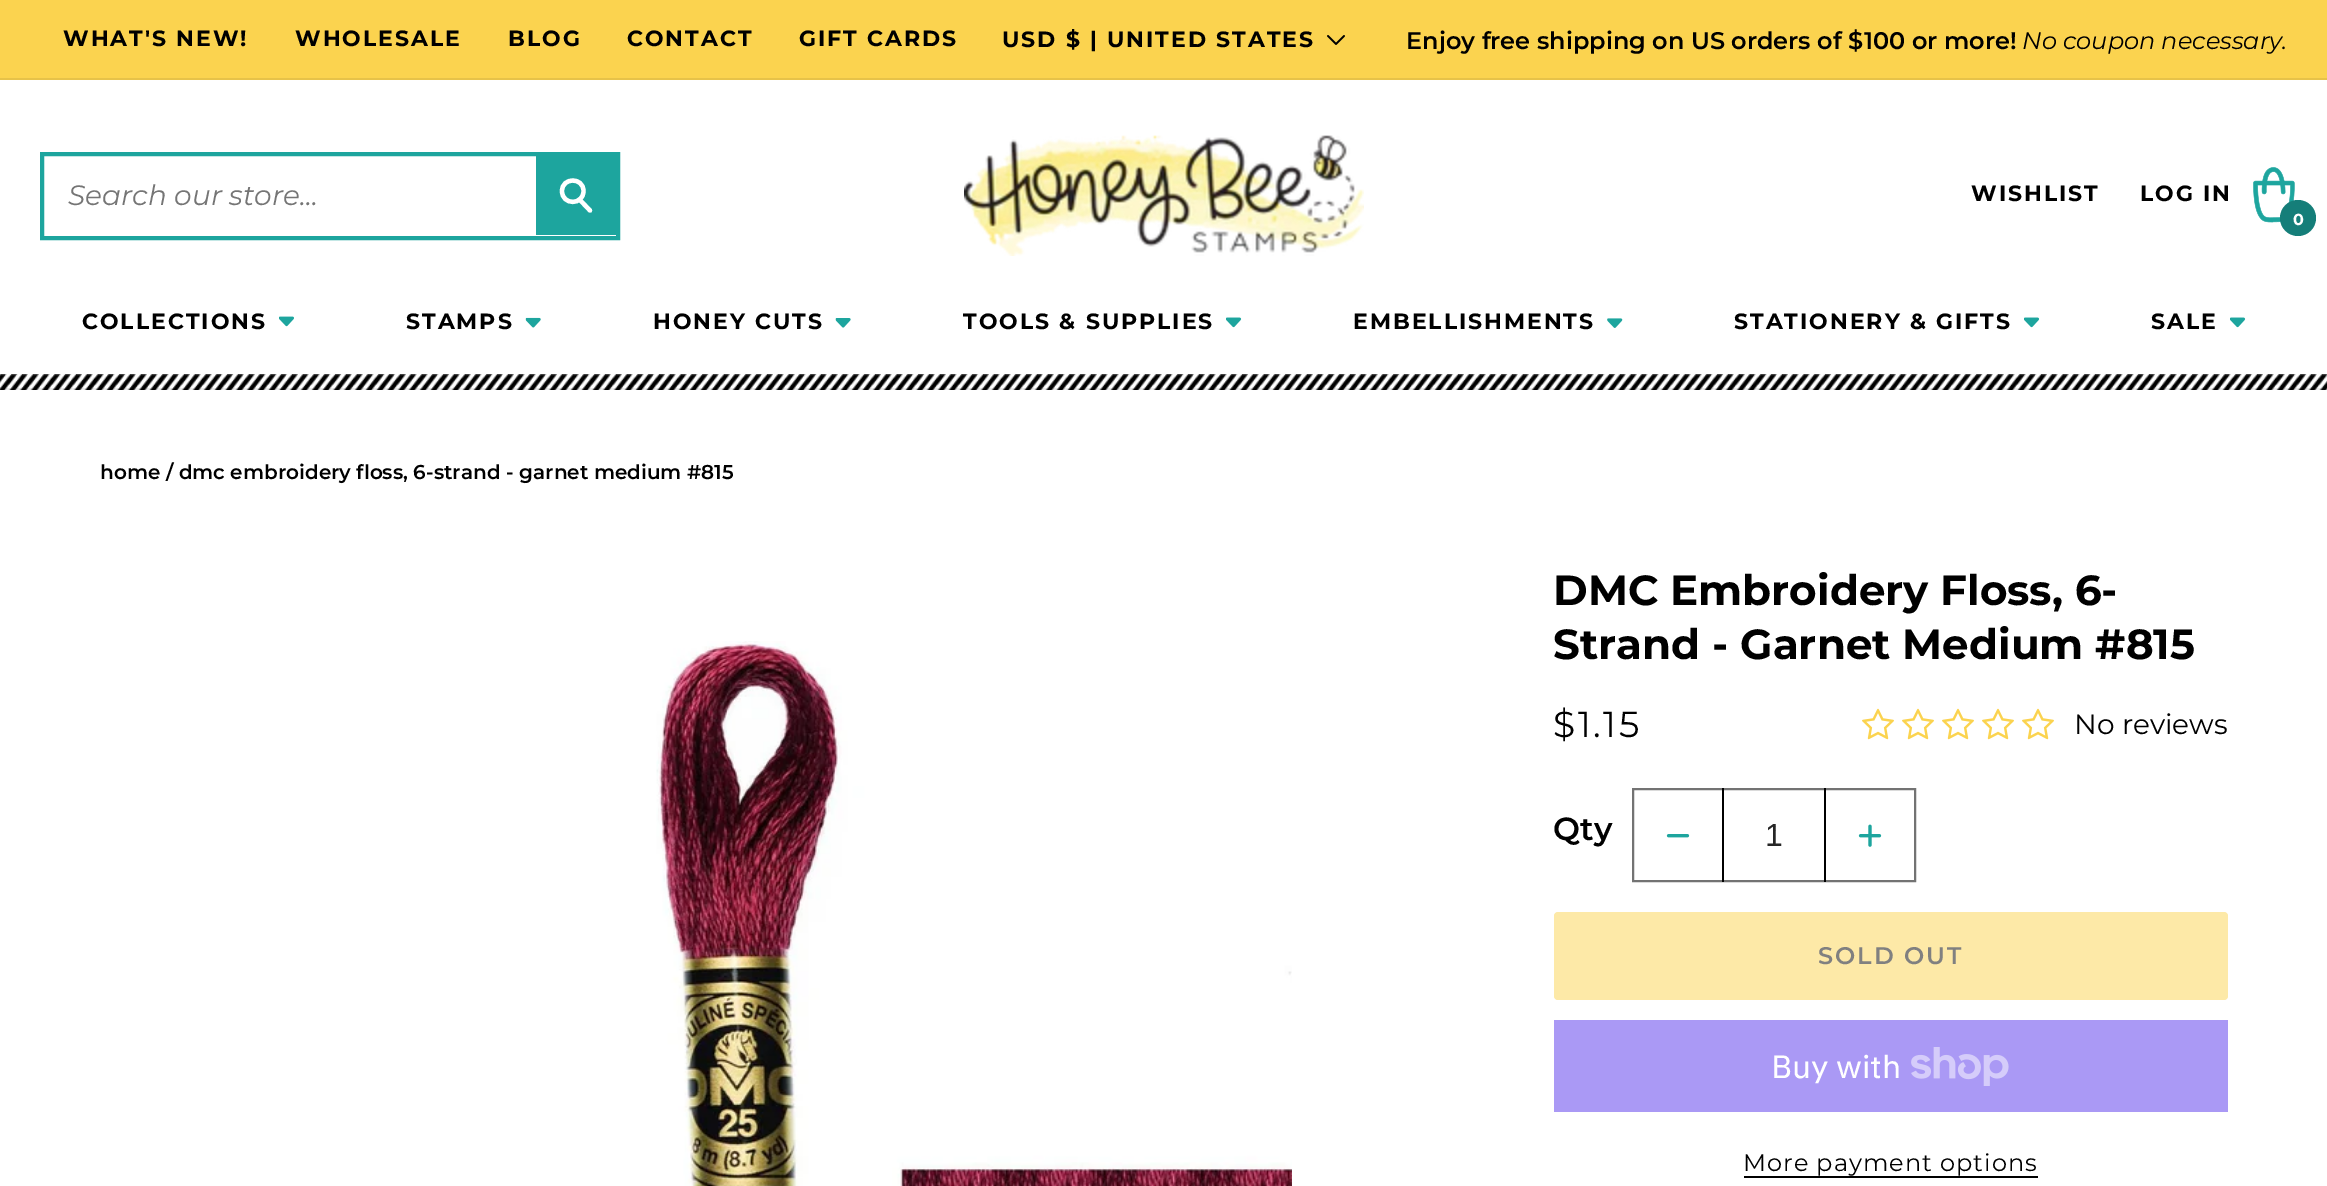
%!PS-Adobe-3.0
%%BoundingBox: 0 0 2327 1186
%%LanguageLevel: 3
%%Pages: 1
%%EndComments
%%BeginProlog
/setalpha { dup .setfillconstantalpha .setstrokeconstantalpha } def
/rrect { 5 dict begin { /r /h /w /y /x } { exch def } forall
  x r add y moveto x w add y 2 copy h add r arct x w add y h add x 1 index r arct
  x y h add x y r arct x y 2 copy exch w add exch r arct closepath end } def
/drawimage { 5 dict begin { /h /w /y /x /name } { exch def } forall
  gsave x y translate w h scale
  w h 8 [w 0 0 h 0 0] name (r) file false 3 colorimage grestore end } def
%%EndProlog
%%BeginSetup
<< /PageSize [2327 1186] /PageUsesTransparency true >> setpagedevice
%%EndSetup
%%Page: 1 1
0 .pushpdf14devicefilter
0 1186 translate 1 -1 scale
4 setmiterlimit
1 setgray
0 0 2327 1186 rectfill
0.984 0.827 0.31 setrgbcolor
0 0 2327 78 rectfill
0.906 0.761 0.286 setrgbcolor
0 78 2327 2 rectfill
(images/1.raw) 1327 35 18 10 drawimage
(images/2.raw) 0 374 2327 16 drawimage
0.08 setalpha
0 setgray
0 388 2327 2 rectfill
1 setalpha
0.114 0.647 0.62 setrgbcolor
2 setlinewidth
41 153 578 86 rectstroke
43 155 574 82 rectstroke
536 156 80 79 rectfill
1 setgray
4.3 setlinewidth
newpath 583.5 191 moveto 583.5 205.5 562 205.5 562 191 curveto 562 177 583.5 177 583.5 191 curveto closepath stroke
1 setlinecap
newpath 579.5 199.5 moveto 590 210.5 lineto stroke
(images/3.raw) 964 135 400 121 drawimage
(images/4.raw) 2253 167 42 56 drawimage
0.082 0.494 0.475 setrgbcolor
newpath 2298 218 18 0 360 arc closepath fill
(images/5.raw) 279 316 15 11 drawimage
(images/6.raw) 525 317 16 11 drawimage
(images/7.raw) 835 318 16 10 drawimage
(images/8.raw) 1226 317 16 11 drawimage
(images/9.raw) 1607 318 16 10 drawimage
(images/8.raw) 2024 317 16 11 drawimage
(images/8.raw) 2230 317 16 11 drawimage
(images/10.raw) 656 641 636 545 drawimage
(images/11.raw) 1862 708 32 32 drawimage
(images/11.raw) 1902 708 32 32 drawimage
(images/11.raw) 1942 708 32 32 drawimage
(images/11.raw) 1982 708 32 32 drawimage
(images/11.raw) 2022 708 32 32 drawimage
0 setgray
1722 788 2 94 rectfill
(images/12.raw) 1666 834 24 4 drawimage
1824 788 2 94 rectfill
(images/13.raw) 1858 824 24 23 drawimage
0.55 setalpha
2 setlinewidth
0 setlinecap
1633 789 282 92 rectstroke
1 setalpha
0.992 0.914 0.655 setrgbcolor
1554 912 674 88 4 rrect fill
0.667 0.6 0.961 setrgbcolor
1554 1020 674 92 rectfill
(images/14.raw) 1911 1047 98 39 drawimage
0 setgray
1744 1176 294 2 rectfill
/Montserrat-Bold [22 0 0 -22 0 0] selectfont
63 46 moveto 2 0 (WHAT'S NEW!) ashow
295 46 moveto 2 0 (WHOLESALE) ashow
508 46 moveto 2 0 (BLOG) ashow
627 46 moveto 2 0 (CONTACT) ashow
799 46 moveto 2 0 (GIFT CARDS) ashow
1002 47 moveto 2 0 (USD $ | UNITED STATES) ashow
/Montserrat-SemiBold [24 0 0 -24 0 0] selectfont
1406 49 moveto (Enjoy free shipping on US orders of $100 or more!) show
/Montserrat-Italic [24 0 0 -24 0 0] selectfont
2022 49 moveto (No coupon necessary.) show
/Montserrat-Italic [28 0 0 -28 0 0] selectfont
0.459 setgray
68 205 moveto (Search our store...) show
/Montserrat-Bold [22 0 0 -22 0 0] selectfont
0 setgray
1971 201 moveto 2 0 (WISHLIST) ashow
2140 201 moveto 2 0 (LOG IN) ashow
/Montserrat-Bold [16 0 0 -16 0 0] selectfont
1 setgray
2293 225 moveto (0) show
/Montserrat-Bold [22 0 0 -22 0 0] selectfont
0 setgray
82 329 moveto 2 0 (COLLECTIONS) ashow
406 329 moveto 2 0 (STAMPS) ashow
653 329 moveto 2 0 (HONEY CUTS) ashow
963 329 moveto 2 0 (TOOLS & SUPPLIES) ashow
1353 329 moveto 2 0 (EMBELLISHMENTS) ashow
1734 329 moveto 2 0 (STATIONERY & GIFTS) ashow
2151 329 moveto 2 0 (SALE) ashow
/Montserrat-SemiBold [20 0 0 -20 0 0] selectfont
100 479 moveto (home / dmc embroidery floss, 6-strand - garnet medium #815) show
/Montserrat-Bold [42 0 0 -42 0 0] selectfont
1553 605 moveto (DMC Embroidery Floss, 6-) show
1553 659 moveto (Strand - Garnet Medium #815) show
/Montserrat-Regular [36 0 0 -36 0 0] selectfont
1553 737 moveto 2.5 0 ($1.15) ashow
/Montserrat-Regular [28 0 0 -28 0 0] selectfont
2074 734 moveto (No reviews) show
/Montserrat-SemiBold [32 0 0 -32 0 0] selectfont
1553 840 moveto (Qty) show
/LiberationSans-Regular [32 0 0 -32 0 0] selectfont
0.149 setgray
1765 846 moveto (1) show
/Montserrat-SemiBold [24 0 0 -24 0 0] selectfont
0.502 setgray
1818 964 moveto 2 0 (SOLD OUT) ashow
/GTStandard-Regular [32 0 0 -32 0 0] selectfont
1 setgray
1771 1078 moveto (Buy with) show
/Montserrat-Regular [24 0 0 -24 0 0] selectfont
0 setgray
1743 1171 moveto 1 0 (More payment options) ashow
.poppdf14devicefilter showpage
%%EOF
